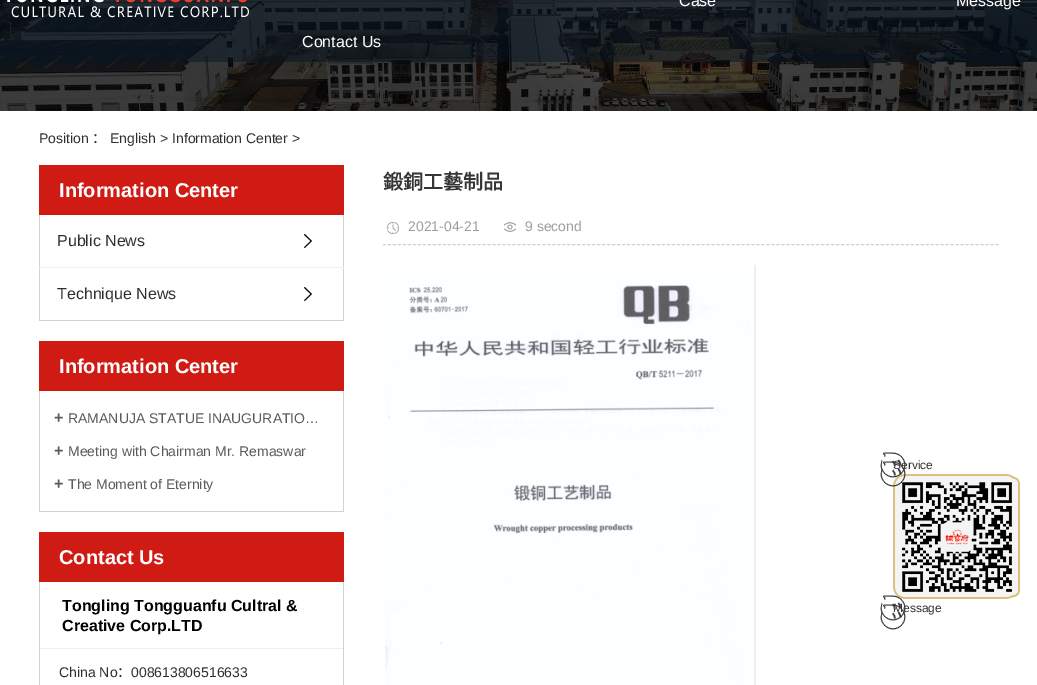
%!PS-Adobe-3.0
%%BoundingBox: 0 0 1037 685
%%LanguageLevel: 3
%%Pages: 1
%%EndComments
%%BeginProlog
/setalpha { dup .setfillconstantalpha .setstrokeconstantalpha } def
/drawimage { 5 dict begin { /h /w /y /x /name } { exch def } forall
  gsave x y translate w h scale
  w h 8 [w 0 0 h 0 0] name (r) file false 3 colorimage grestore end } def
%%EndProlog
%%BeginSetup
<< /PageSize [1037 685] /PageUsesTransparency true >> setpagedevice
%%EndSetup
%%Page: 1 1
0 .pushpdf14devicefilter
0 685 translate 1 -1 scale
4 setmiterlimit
1 setgray
0 0 1037 685 rectfill
(images/1.raw) 0 0 1037 111 drawimage
0.48 setalpha
0.016 0.078 0.141 setrgbcolor
0 0 1037 62 rectfill
1 setalpha
(images/2.raw) 7 0 242 18 drawimage
0.816 0.106 0.078 setrgbcolor
39 165 305 50 rectfill
0.824 setgray
343 215 1 106 rectfill
39 320 305 1 rectfill
39 215 1 106 rectfill
0.933 setgray
39 267 305 1 rectfill
(images/3.raw) 304 234 8 14 drawimage
(images/3.raw) 304 287 8 14 drawimage
0.816 0.106 0.078 setrgbcolor
39 341 305 50 rectfill
0.824 setgray
343 391 1 121 rectfill
39 511 305 1 rectfill
39 391 1 121 rectfill
0.816 0.106 0.078 setrgbcolor
39 532 305 50 rectfill
0.824 setgray
343 582 1 103 rectfill
39 582 1 103 rectfill
0.933 setgray
40 648 303 1 rectfill
0.812 setgray
[3 1.98] 0 setdash
newpath 383 244.5 moveto 999 244.5 lineto stroke
(images/4.raw) 387 222 12 12 drawimage
(images/5.raw) 504 222 12 10 drawimage
(images/6.raw) 385 265 371 420 drawimage
(images/9.raw) 893 474 127 125 drawimage
/LiberationSans-Regular [16 0 0 -16 0 0] selectfont
1 setgray
679 6 moveto (Case) show
956 6 moveto (Message) show
302 47 moveto (Contact Us) show
/LiberationSans-Regular [14 0 0 -14 0 0] selectfont
0.184 setgray
39 143 moveto (Position) show
/NotoSansCJKSC-Regular [14 0 0 -14 0 0] selectfont
92 143 moveto (：) show
/LiberationSans-Regular [14 0 0 -14 0 0] selectfont
110 143 moveto (English >) show
172 143 moveto (Information Center) show
292 143 moveto (>) show
/LiberationSans-Bold [20 0 0 -20 0 0] selectfont
1 setgray
59 197 moveto (Information Center) show
/LiberationSans-Regular [16 0 0 -16 0 0] selectfont
0.184 setgray
57 246 moveto (Public News) show
57 299 moveto (Technique News) show
/LiberationSans-Bold [20 0 0 -20 0 0] selectfont
1 setgray
59 373 moveto (Information Center) show
/LiberationSans-Bold [16 0 0 -16 0 0] selectfont
0.353 setgray
54 423 moveto (+) show
/LiberationSans-Regular [14 0 0 -14 0 0] selectfont
68 423 moveto (RAMANUJA STATUE INAUGURATIO…) show
/LiberationSans-Bold [16 0 0 -16 0 0] selectfont
54 456 moveto (+) show
/LiberationSans-Regular [14 0 0 -14 0 0] selectfont
68 456 moveto (Meeting with Chairman Mr. Remaswar) show
/LiberationSans-Bold [16 0 0 -16 0 0] selectfont
54 489 moveto (+) show
/LiberationSans-Regular [14 0 0 -14 0 0] selectfont
68 489 moveto (The Moment of Eternity) show
/LiberationSans-Bold [20 0 0 -20 0 0] selectfont
1 setgray
59 564 moveto (Contact Us) show
/LiberationSans-Bold [16 0 0 -16 0 0] selectfont
0 setgray
62 611 moveto (Tongling Tongguanfu Cultral &) show
62 631 moveto (Creative Corp.LTD) show
/LiberationSans-Regular [14 0 0 -14 0 0] selectfont
0.184 setgray
59 677 moveto (China No) show
/NotoSansCJKSC-Regular [14 0 0 -14 0 0] selectfont
117 677 moveto (：) show
/LiberationSans-Regular [14 0 0 -14 0 0] selectfont
131 677 moveto (008613806516633) show
/NotoSansCJKSC-Bold [20 0 0 -20 0 0] selectfont
0.212 setgray
383 189 moveto (鍛銅工藝制品) show
/LiberationSans-Regular [14 0 0 -14 0 0] selectfont
0.62 setgray
408 231 moveto (2021-04-21) show
525 231 moveto (9 second) show
/LiberationSans-Regular [12 0 0 -12 0 0] selectfont
0.184 setgray
893 469 moveto (Service) show
(images/7.raw) 880 452 26 26 drawimage
(images/8.raw) 880 461 26 26 drawimage
893 612 moveto (Message) show
(images/10.raw) 880 595 26 26 drawimage
(images/11.raw) 880 604 26 26 drawimage
.poppdf14devicefilter showpage
%%EOF
